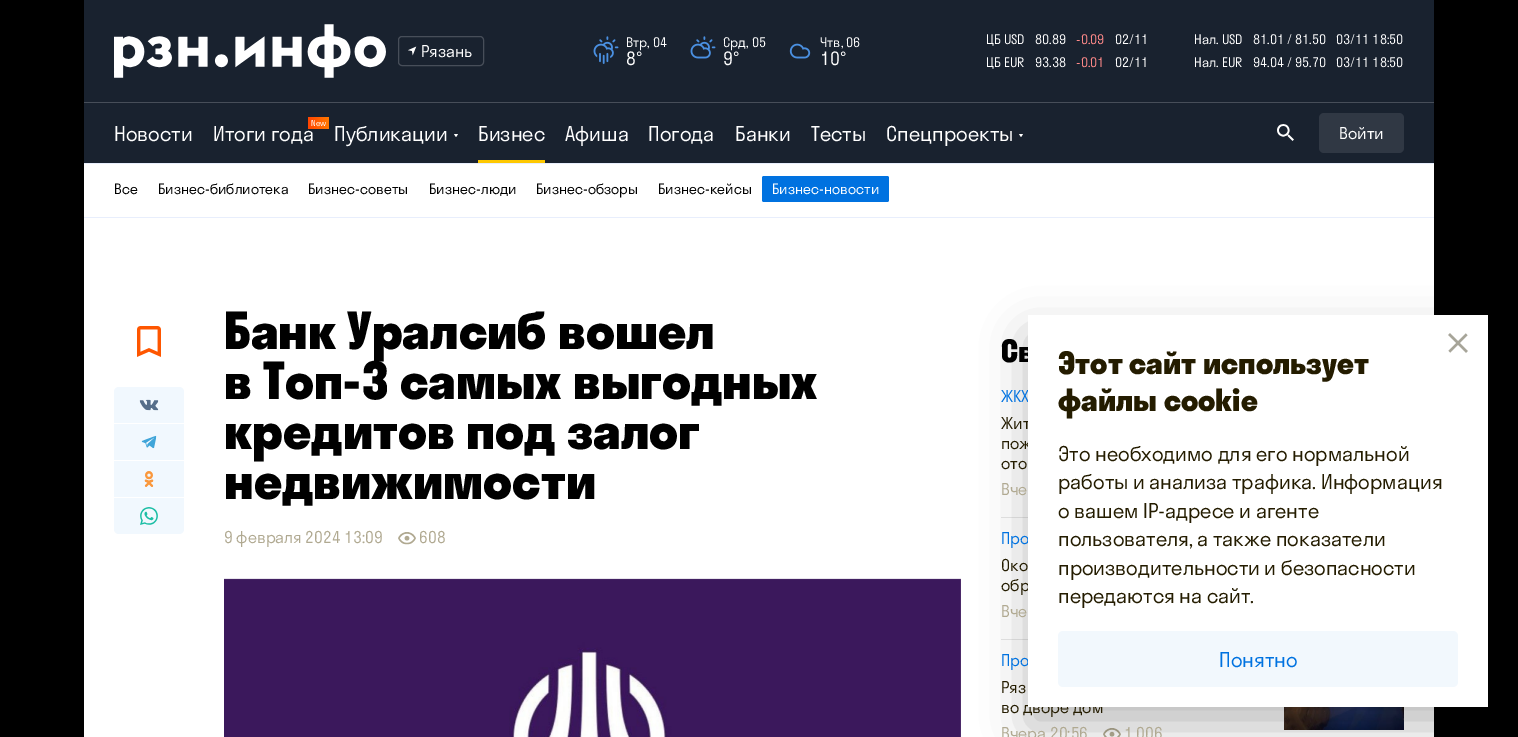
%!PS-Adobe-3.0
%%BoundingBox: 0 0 1518 737
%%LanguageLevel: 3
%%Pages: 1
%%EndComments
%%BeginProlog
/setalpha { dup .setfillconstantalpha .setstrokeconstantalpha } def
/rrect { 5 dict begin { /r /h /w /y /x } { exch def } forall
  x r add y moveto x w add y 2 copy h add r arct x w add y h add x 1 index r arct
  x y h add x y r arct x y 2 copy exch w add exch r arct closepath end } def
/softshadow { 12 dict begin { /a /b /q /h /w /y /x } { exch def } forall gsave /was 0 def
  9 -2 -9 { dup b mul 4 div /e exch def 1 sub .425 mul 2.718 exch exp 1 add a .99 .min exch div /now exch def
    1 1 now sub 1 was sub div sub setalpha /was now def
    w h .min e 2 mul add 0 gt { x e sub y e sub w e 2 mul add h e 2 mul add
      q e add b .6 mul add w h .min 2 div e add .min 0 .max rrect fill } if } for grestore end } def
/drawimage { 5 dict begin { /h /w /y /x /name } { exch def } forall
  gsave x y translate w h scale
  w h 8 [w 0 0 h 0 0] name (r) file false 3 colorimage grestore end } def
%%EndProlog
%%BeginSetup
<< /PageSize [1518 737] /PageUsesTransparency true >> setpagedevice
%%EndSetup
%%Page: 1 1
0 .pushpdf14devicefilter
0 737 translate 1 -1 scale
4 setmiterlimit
0 setgray
0 0 1518 737 rectfill
1 setgray
84 164 1350 573 rectfill
0.098 0.133 0.184 setrgbcolor
84 0 1350 163 rectfill
0.278 0.306 0.349 setrgbcolor
84 102 1350 1 rectfill
(images/1.raw) 114 24 272 54 drawimage
398.5 36.5 85 29 3.5 rrect stroke
(images/2.raw) 408 46 9 10 drawimage
(images/3.raw) 593 36 26 28 drawimage
(images/4.raw) 690 36 26 23 drawimage
(images/5.raw) 789 43 22 16 drawimage
1 setgray
newpath 454 134 moveto 458 134 lineto 456 137 lineto closepath fill
0.996 0.784 0 setrgbcolor
478 160 67 3 rectfill
1 setgray
newpath 1019 134 moveto 1023 134 lineto 1021 137 lineto closepath fill
(images/6.raw) 1277 124 17 17 drawimage
0.188 0.22 0.267 setrgbcolor
1319 113 85 40 5 rrect fill
0.91 0.933 0.988 setrgbcolor
84 163 1350 1 rectfill
84 217 1350 1 rectfill
0 0.447 0.878 setrgbcolor
762 176 127 26 2 rrect fill
(images/7.raw) 137 326 24 31 drawimage
0.945 0.973 0.996 setrgbcolor
newpath 119 387 moveto 179 387 lineto 182 387 184 389 184 392 curveto 184 423 lineto 114 423 lineto 114 392 lineto 114 389 116 387 119 387 curveto closepath fill
(images/8.raw) 139 399 20 12 drawimage
114 424 70 36 rectfill
(images/9.raw) 141 435 16 14 drawimage
114 461 70 36 rectfill
(images/10.raw) 144 471 10 16 drawimage
newpath 114 498 moveto 184 498 lineto 184 529 lineto 184 532 182 534 179 534 curveto 119 534 lineto 116 534 114 532 114 529 curveto closepath fill
(images/11.raw) 140 507 18 18 drawimage
(images/12.raw) 398 532 18 13 drawimage
(images/13.raw) 224 578 737 159 drawimage
0.902 setgray
1001 517 27 1 rectfill
1001 639 27 1 rectfill
(images/14.raw) 1103 728 18 9 drawimage
(images/15.raw) 1284 707 120 23 drawimage
0 setgray
1028 335 460 392 0 22 0.25 softshadow
/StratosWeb-Light [16 0 0 -16 0 0] selectfont
1 setgray
421 57 moveto (Рязань) show
/StratosWeb-Light [13 0 0 -13 0 0] selectfont
626 47 moveto (Втр, 04) show
/StratosWeb-Light [18 0 0 -18 0 0] selectfont
626 65 moveto (8°) show
/StratosWeb-Light [13 0 0 -13 0 0] selectfont
723 47 moveto (Срд, 05) show
/StratosWeb-Light [18 0 0 -18 0 0] selectfont
723 65 moveto (9°) show
/StratosWeb-Light [13 0 0 -13 0 0] selectfont
820 47 moveto (Чтв, 06) show
/StratosWeb-Light [18 0 0 -18 0 0] selectfont
820 65 moveto (10°) show
/StratosWeb-Light [13 0 0 -13 0 0] selectfont
986 44 moveto (ЦБ USD) show
1035 44 moveto (80.89) show
1 0.537 0.537 setrgbcolor
1076 44 moveto (-0.09) show
1 setgray
1115 44 moveto (02/11) show
986 67 moveto (ЦБ EUR) show
1035 67 moveto (93.38) show
1 0.537 0.537 setrgbcolor
1076 67 moveto (-0.01) show
1 setgray
1115 67 moveto (02/11) show
1194 44 moveto (Нал. USD) show
1253 44 moveto (81.01 / 81.50) show
1336 44 moveto (03/11 18:50) show
1194 67 moveto (Нал. EUR) show
1253 67 moveto (94.04 / 95.70) show
1336 67 moveto (03/11 18:50) show
/StratosWeb-Light [20 0 0 -20 0 0] selectfont
114 141 moveto (Новости) show
213 141 moveto (Итоги года) show
gsave 308 117 21 12 2 rrect clip newpath
<< /ShadingType 2 /ColorSpace /DeviceRGB /Coords [329 123 308 123] /Extend [true true] /Function << /FunctionType 2 /Domain [0 1] /C0 [1 0.475 0] /C1 [1 0.267 0] /N 1 >> >> shfill grestore
/StratosWeb-Light [8 0 0 -8 0 0] selectfont
311 126 moveto (New) show
/StratosWeb-Light [20 0 0 -20 0 0] selectfont
334 141 moveto (Публикации) show
478 141 moveto (Бизнес) show
565 141 moveto (Афиша) show
648 141 moveto (Погода) show
735 141 moveto (Банки) show
811 141 moveto (Тесты) show
886 141 moveto (Спецпроекты) show
/StratosWeb-Light [16 0 0 -16 0 0] selectfont
1339 139 moveto (Войти) show
/StratosWeb-Light [14 0 0 -14 0 0] selectfont
0 setgray
114 194 moveto (Все) show
158 194 moveto (Бизнес-библиотека) show
308 194 moveto (Бизнес-советы) show
429 194 moveto (Бизнес-люди) show
536 194 moveto (Бизнес-обзоры) show
658 194 moveto (Бизнес-кейсы) show
1 setgray
772 194 moveto (Бизнес-новости) show
/StratosWeb-ExtraBold [50 0 0 -50 0 0] selectfont
0 setgray
224 349 moveto (Банк Уралсиб вошел) show
224 399 moveto (в Топ-3 самых выгодных) show
224 449 moveto (кредитов под залог) show
224 499 moveto (недвижимости) show
/StratosWeb-Light [16 0 0 -16 0 0] selectfont
0.69 0.663 0.569 setrgbcolor
224 543 moveto (9 февраля 2024 13:09) show
419 543 moveto (608) show
/StratosWeb-ExtraBold [30 0 0 -30 0 0] selectfont
0 setgray
1001 362 moveto (Св) show
/StratosWeb-Light [16 0 0 -16 0 0] selectfont
0 0.447 0.878 setrgbcolor
1001 402 moveto (ЖКХ) show
0.141 0.11 0 setrgbcolor
1001 429 moveto (Жит) show
1001 449 moveto (пож) show
1001 469 moveto (ото) show
0.69 0.663 0.569 setrgbcolor
1001 495 moveto (Вче) show
0 0.447 0.878 setrgbcolor
1001 544 moveto (Про) show
0.141 0.11 0 setrgbcolor
1001 571 moveto (Око) show
1001 591 moveto (обр) show
0.69 0.663 0.569 setrgbcolor
1001 617 moveto (Вче) show
0 0.447 0.878 setrgbcolor
1001 666 moveto (Про) show
0.141 0.11 0 setrgbcolor
1001 693 moveto (Ряз) show
1001 713 moveto (во дворе дом) show
0.69 0.663 0.569 setrgbcolor
1001 739 moveto (Вчера 20:56) show
1124 739 moveto (1 006) show
1 setgray
1028 315 460 392 rectfill
(images/16.raw) 1448 333 20 20 drawimage
/StratosWeb-ExtraBold [30 0 0 -30 0 0] selectfont
0.141 0.11 0 setrgbcolor
1058 374 moveto (Этот сайт использует) show
1058 411 moveto (файлы cookie) show
/StratosWeb-Light [20 0 0 -20 0 0] selectfont
1058 461 moveto (Это необходимо для его нормальной) show
1058 489 moveto (работы и анализа трафика. Информация) show
1058 518 moveto (о вашем IP-адресе и агенте) show
1058 546 moveto (пользователя, а также показатели) show
1058 575 moveto (производительности и безопасности) show
1058 603 moveto (передаются на сайт.) show
0.949 0.973 0.992 setrgbcolor
1058 631 400 56 5 rrect fill
0 0.447 0.878 setrgbcolor
1219 667 moveto (Понятно) show
.poppdf14devicefilter showpage
%%EOF
